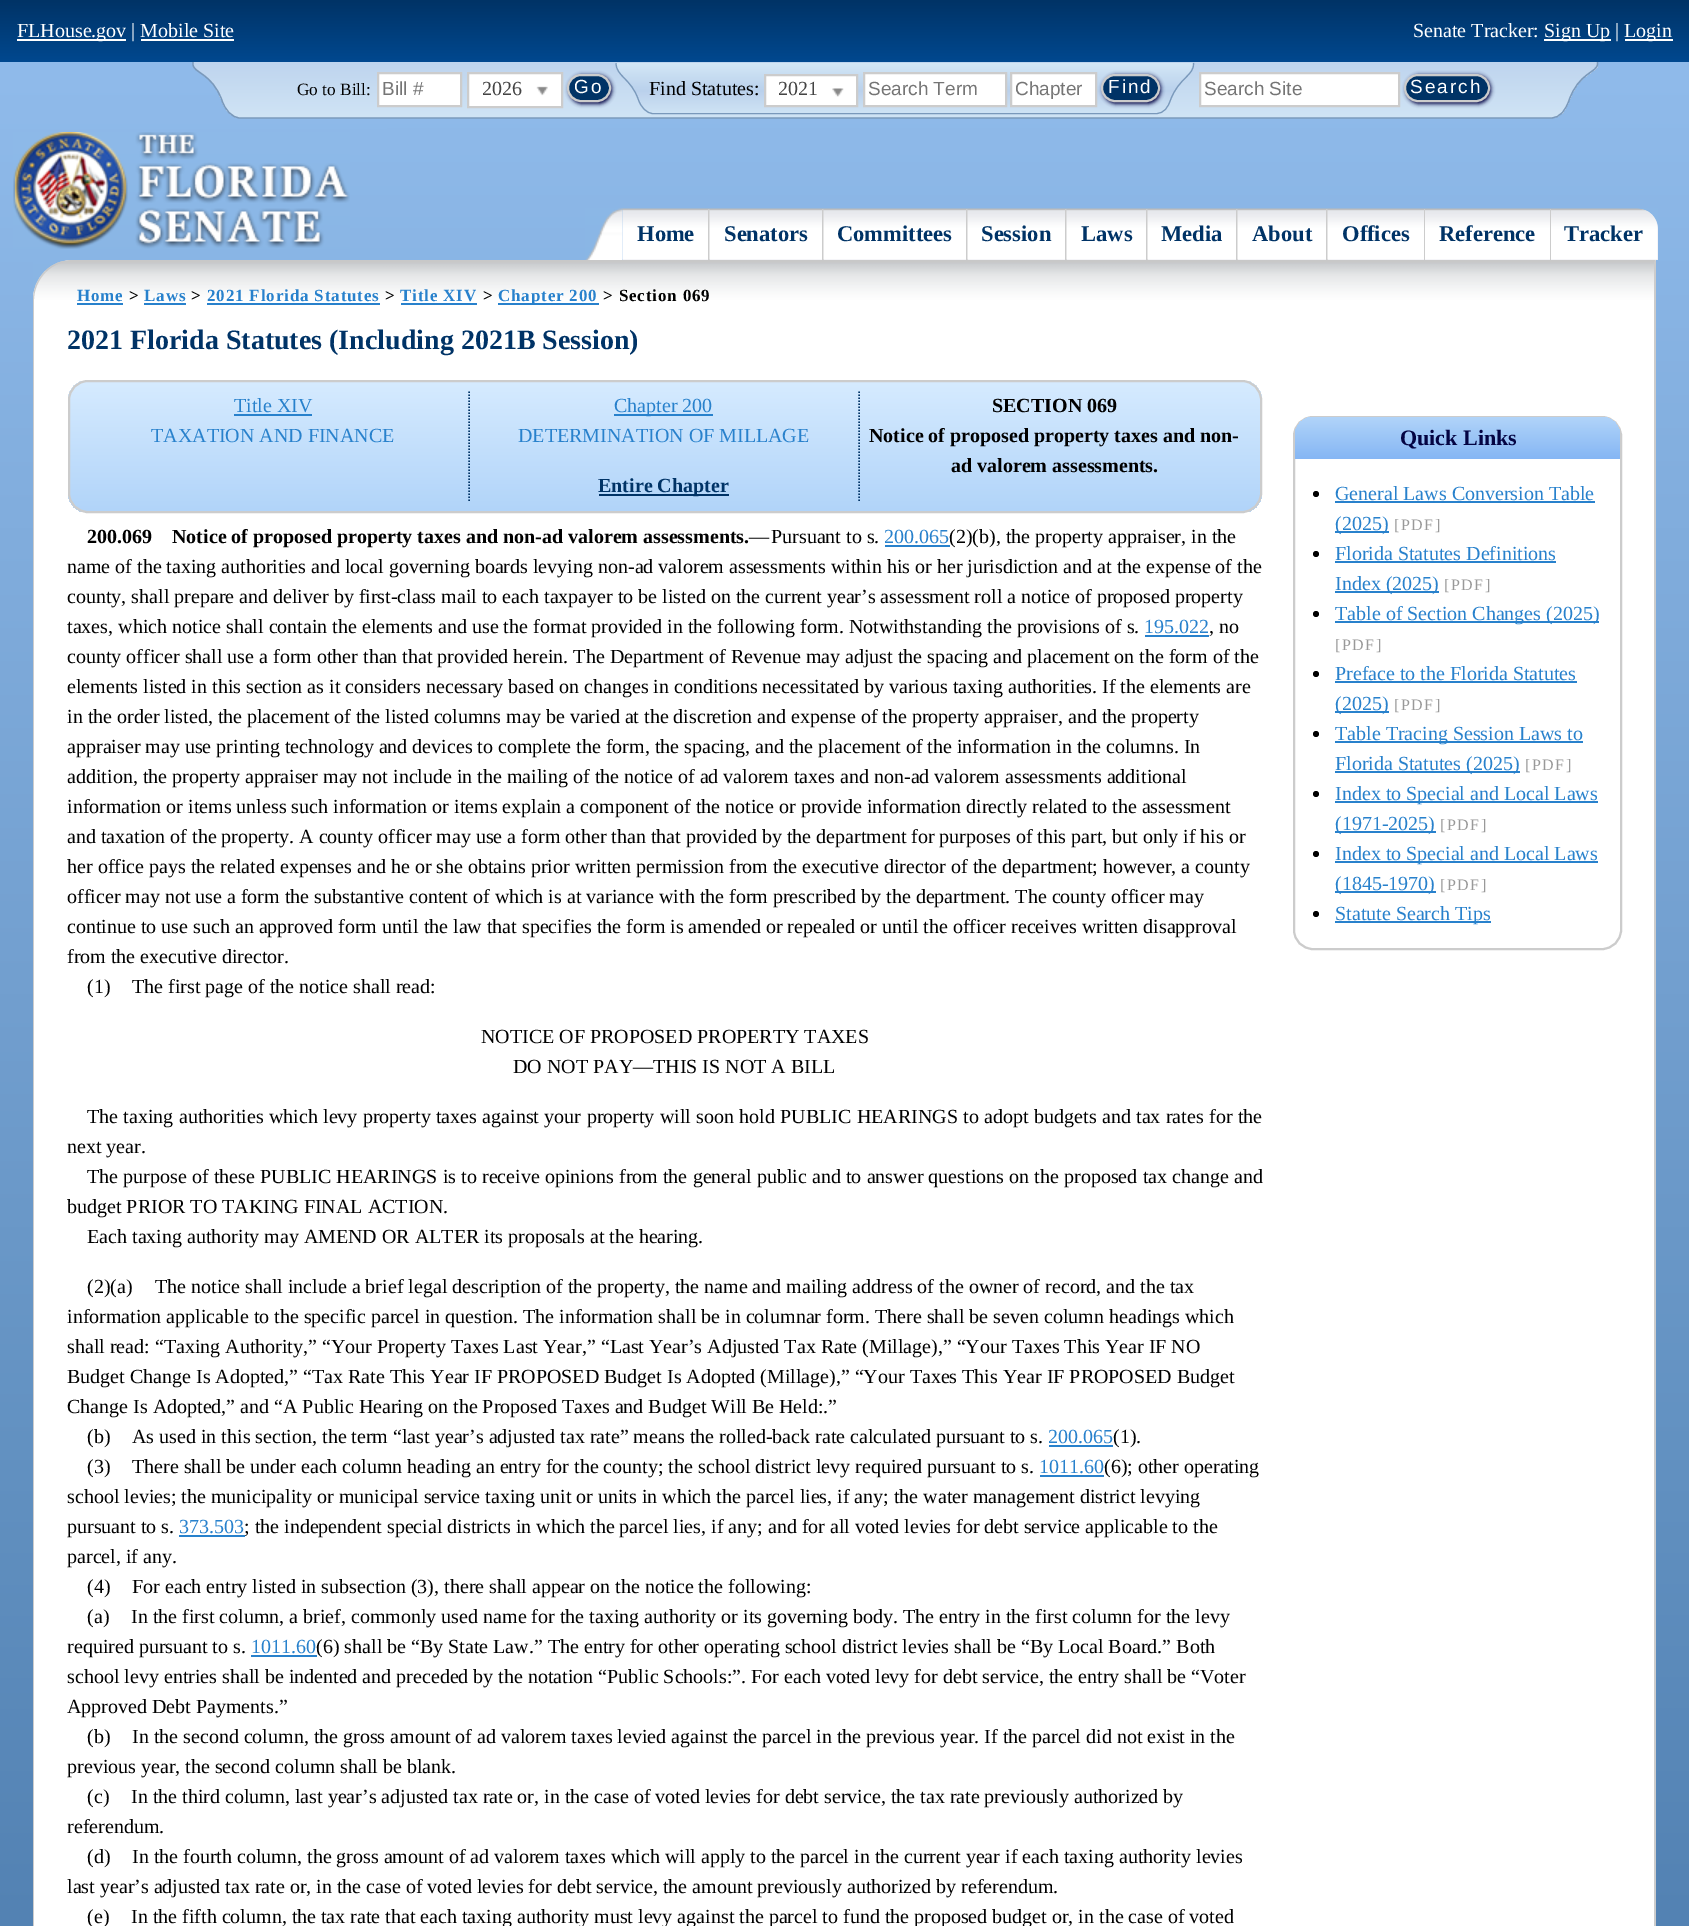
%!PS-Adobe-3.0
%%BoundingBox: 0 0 1689 1926
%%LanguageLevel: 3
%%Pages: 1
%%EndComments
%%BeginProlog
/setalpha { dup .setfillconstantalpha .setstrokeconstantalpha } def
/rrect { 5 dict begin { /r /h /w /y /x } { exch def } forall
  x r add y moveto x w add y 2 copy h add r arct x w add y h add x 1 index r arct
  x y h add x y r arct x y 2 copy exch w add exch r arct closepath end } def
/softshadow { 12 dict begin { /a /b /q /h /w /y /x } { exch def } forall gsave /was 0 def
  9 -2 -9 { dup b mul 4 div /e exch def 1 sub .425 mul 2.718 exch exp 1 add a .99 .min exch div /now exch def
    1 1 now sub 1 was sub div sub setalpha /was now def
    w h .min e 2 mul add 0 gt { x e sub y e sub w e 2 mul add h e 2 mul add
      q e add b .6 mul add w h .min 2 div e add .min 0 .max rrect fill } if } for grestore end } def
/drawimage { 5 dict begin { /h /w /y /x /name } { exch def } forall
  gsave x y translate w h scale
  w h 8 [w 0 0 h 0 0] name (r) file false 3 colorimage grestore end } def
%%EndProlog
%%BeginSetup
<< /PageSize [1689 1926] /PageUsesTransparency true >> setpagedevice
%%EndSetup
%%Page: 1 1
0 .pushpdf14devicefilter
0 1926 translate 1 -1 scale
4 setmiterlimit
1 setgray
0 0 1689 1926 rectfill
gsave newpath 0 62 moveto 1689 62 lineto 1689 1926 lineto 0 1926 lineto closepath clip newpath
<< /ShadingType 2 /ColorSpace /DeviceRGB /Coords [844 0 845 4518] /Extend [true true] /Function << /FunctionType 3 /Domain [0 1] /Functions [<< /FunctionType 2 /Domain [0 1] /C0 [0.565 0.737 0.922] /C1 [0.565 0.737 0.922] /N 1 >> << /FunctionType 2 /Domain [0 1] /C0 [0.565 0.737 0.922] /C1 [0 0.2 0.4] /N 1 >>] /Bounds [0.01] /Encode [0 1 0 1] >> >> shfill grestore
gsave newpath 0 0 moveto 1689 0 lineto 1689 62 lineto 0 62 lineto closepath clip newpath
<< /ShadingType 2 /ColorSpace /DeviceRGB /Coords [845 0 845 62] /Extend [true true] /Function << /FunctionType 2 /Domain [0 1] /C0 [0 0.2 0.4] /C1 [0 0.282 0.561] /N 1 >> >> shfill grestore
17 39 109 2 rectfill
141 39 93 2 rectfill
1544 39 67 2 rectfill
1625 39 48 2 rectfill
gsave
189 62 1410 67 rectclip
gsave newpath 193 -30 moveto 193 64 lineto 193 73 212 72 222 101 curveto 225 110 232 118 240 118 curveto 1550 118 lineto 1561 118 1566 110 1569 101 curveto 1579 72 1598 73 1598 64 curveto 1598 -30 lineto clip newpath
<< /ShadingType 2 /ColorSpace /DeviceRGB /Coords [895 -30 895 118] /Extend [true true] /Function << /FunctionType 3 /Domain [0 1] /Functions [<< /FunctionType 2 /Domain [0 1] /C0 [0.827 0.906 0.965] /C1 [0.729 0.82 0.925] /N 1 >> << /FunctionType 2 /Domain [0 1] /C0 [0.729 0.82 0.925] /C1 [0.741 0.827 0.929] /N 1 >> << /FunctionType 2 /Domain [0 1] /C0 [0.741 0.827 0.929] /C1 [0.816 0.894 0.961] /N 1 >>] /Bounds [0.55 0.59] /Encode [0 1 0 1 0 1] >> >> shfill grestore
0.478 0.6 0.733 setrgbcolor
1.3 setlinewidth
newpath 193 -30 moveto 193 64 lineto 192.5 73 212 72.5 222 100.5 curveto 225 109.5 231.5 118 240.5 118 curveto 1550.5 118 lineto 1561 118 1565.5 109.5 1569 100.5 curveto 1578.5 72.5 1597.5 72.5 1597.5 64 curveto 1597.5 -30 lineto stroke
grestore
newpath 378 73 moveto 461 73 lineto 461 106 lineto 378 106 lineto closepath gsave fill grestore
0.8 setgray
2 setlinewidth
stroke
gsave newpath 1193 63 moveto 1194 75 1178 78 1171 100 curveto 1168 107 1165 114 1156 114 curveto 653 114 lineto 646 114 641 107 639 100 curveto 631 78 616 77 616 63 curveto clip newpath
<< /ShadingType 2 /ColorSpace /DeviceRGB /Coords [905 63 905 114] /Extend [true true] /Function << /FunctionType 3 /Domain [0 1] /Functions [<< /FunctionType 2 /Domain [0 1] /C0 [0.827 0.906 0.965] /C1 [0.729 0.82 0.925] /N 1 >> << /FunctionType 2 /Domain [0 1] /C0 [0.729 0.82 0.925] /C1 [0.741 0.827 0.929] /N 1 >> << /FunctionType 2 /Domain [0 1] /C0 [0.741 0.827 0.929] /C1 [0.816 0.894 0.961] /N 1 >>] /Bounds [0.55 0.59] /Encode [0 1 0 1 0 1] >> >> shfill grestore
0.478 0.6 0.733 setrgbcolor
1.1 setlinewidth
newpath 1193.5 63 moveto 1194.5 75.5 1178.5 78 1170.5 100 curveto 1168 107 1164.5 113.5 1156 113.5 curveto 653 113.5 lineto 646.5 113.5 641 107 638.5 100 curveto 631 78 616 76.5 616 63 curveto stroke
0.016 0.016 0.263 setrgbcolor
569 75 43 29 14.5 2 1 softshadow
1 setgray
newpath 468 73 moveto 562 73 lineto 562 107 lineto 468 107 lineto closepath gsave fill grestore
0.8 setgray
2 setlinewidth
stroke
(images/1.raw) 536 86 12 10 drawimage
0 0.2 0.4 setrgbcolor
568 75 42 26 13 rrect gsave fill grestore
0.8 setgray
stroke
1 setgray
newpath 765 75 moveto 857 75 lineto 857 106 lineto 765 106 lineto closepath gsave fill grestore
0.8 setgray
stroke
(images/2.raw) 832 88 12 9 drawimage
1 setgray
newpath 864 73 moveto 1006 73 lineto 1006 106 lineto 864 106 lineto closepath gsave fill grestore
0.8 setgray
stroke
1 setgray
newpath 1011 73 moveto 1096 73 lineto 1096 106 lineto 1011 106 lineto closepath gsave fill grestore
0.8 setgray
stroke
0.016 0.016 0.263 setrgbcolor
1103 75 58 29 14.5 2 1 softshadow
0 0.2 0.4 setrgbcolor
1102 75 57 26 13 rrect gsave fill grestore
0.8 setgray
stroke
1 setgray
newpath 1200 73 moveto 1399 73 lineto 1399 106 lineto 1200 106 lineto closepath gsave fill grestore
0.8 setgray
stroke
0.016 0.016 0.263 setrgbcolor
1406 75 85 29 14.5 2 1 softshadow
0 0.2 0.4 setrgbcolor
1405 75 84 26 13 rrect gsave fill grestore
0.8 setgray
stroke
(images/3.raw) 13 132 337 117 drawimage
(images/4.raw) 585 208 38 52 drawimage
0.922 0.922 0.941 setrgbcolor
623 259 85 1 rectfill
(images/5.raw) 622 208 88 52 drawimage
0.8 setgray
708 209 2 51 rectfill
0.922 0.922 0.941 setrgbcolor
710 259 112 1 rectfill
(images/6.raw) 709 208 115 52 drawimage
0.8 setgray
822 209 2 51 rectfill
0.922 0.922 0.941 setrgbcolor
824 259 142 1 rectfill
(images/7.raw) 823 208 145 52 drawimage
0.8 setgray
966 209 2 51 rectfill
0.922 0.922 0.941 setrgbcolor
968 259 97 1 rectfill
(images/8.raw) 967 208 100 52 drawimage
0.8 setgray
1065 209 2 51 rectfill
0.922 0.922 0.941 setrgbcolor
1067 259 79 1 rectfill
(images/9.raw) 1066 208 82 52 drawimage
0.8 setgray
1146 209 2 51 rectfill
0.922 0.922 0.941 setrgbcolor
1148 259 88 1 rectfill
(images/10.raw) 1147 208 91 52 drawimage
0.8 setgray
1236 209 2 51 rectfill
0.922 0.922 0.941 setrgbcolor
1238 259 88 1 rectfill
(images/10.raw) 1237 208 91 52 drawimage
0.8 setgray
1326 209 2 51 rectfill
0.922 0.922 0.941 setrgbcolor
1328 259 96 1 rectfill
(images/11.raw) 1327 208 98 52 drawimage
0.8 setgray
1424 209 1 51 rectfill
0.922 0.922 0.941 setrgbcolor
1425 259 125 1 rectfill
(images/12.raw) 1425 208 126 52 drawimage
0.8 setgray
1550 209 1 51 rectfill
0.922 0.922 0.941 setrgbcolor
newpath 1551 209 moveto 1638 209 lineto 1649 209 1658 218 1658 229 curveto 1658 260 lineto 1551 260 lineto closepath fill
(images/13.raw) 1551 208 107 52 drawimage
1 setgray
newpath 74 260 moveto 1656 260 lineto 1656 1926 lineto 1656 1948.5 1637.5 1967 1615 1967 curveto 74 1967 lineto 51.5 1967 33 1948.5 33 1926 curveto 33 301 lineto 33 278.5 51.5 260 74 260 curveto closepath fill
(images/14.raw) 33 261 1622 39 drawimage
0.784 setgray
newpath 73 260 moveto 62 260 52 264 45 271 curveto 46 272 lineto 53 265 63 261 73 261 curveto 1654 261 lineto 1654 262 lineto 1656 260 lineto closepath fill
0.8 setgray
newpath 1656 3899 moveto 1656 260 lineto 1654 262 lineto 1654 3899 lineto 1654 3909 1650 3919 1643 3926 curveto 1644 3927 lineto 1652 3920 1656 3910 1656 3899 curveto closepath fill
newpath 33 300 moveto 33 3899 lineto 33 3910 38 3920 45 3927 curveto 46 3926 lineto 38 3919 34 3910 34 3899 curveto 34 300 lineto 34 289 39 279 46 272 curveto 45 271 lineto 38 278 33 288 33 300 curveto closepath fill
0.157 0.506 0.8 setrgbcolor
77 303 46 2 rectfill
144 303 42 2 rectfill
207 303 173 2 rectfill
401 303 76 2 rectfill
498 303 101 2 rectfill
gsave
68 380 1194 133 20 rrect clip newpath
gsave newpath 68 381 moveto 1262 381 lineto 1262 512 lineto 68 512 lineto closepath clip newpath
<< /ShadingType 2 /ColorSpace /DeviceRGB /Coords [665 381 665 512] /Extend [true true] /Function << /FunctionType 2 /Domain [0 1] /C0 [0.839 0.922 1] /C1 [0.694 0.831 0.976] /N 1 >> >> shfill grestore
grestore
0.8 setgray
69 381 1192 131 19 rrect stroke
0 0.2 0.4 setrgbcolor
1.5 setlinewidth
[1.5 1.5] 0 setdash
newpath 469 391.5 moveto 469 501 lineto stroke
0.157 0.506 0.8 setrgbcolor
234 414 78 2 rectfill
0 0.2 0.4 setrgbcolor
newpath 859 391.5 moveto 859 501 lineto stroke
0.157 0.506 0.8 setrgbcolor
614 414 99 2 rectfill
0 0.2 0.4 setrgbcolor
599 494 130 2 rectfill
0.157 0.506 0.8 setrgbcolor
885 545 65 2 rectfill
1145 635 64 2 rectfill
1049 1445 64 2 rectfill
1040 1475 64 2 rectfill
179 1535 66 2 rectfill
251 1655 66 2 rectfill
0.8 setgray
2 setlinewidth
[] 0 setdash
1294 417 327 532 19 rrect stroke
gsave newpath 1313 417 moveto 1602 417 lineto 1612 417 1620 425 1620 435 curveto 1620 459 lineto 1295 459 lineto 1295 435 lineto 1295 425 1303 417 1313 417 curveto closepath clip newpath
<< /ShadingType 2 /ColorSpace /DeviceRGB /Coords [1295 417 1295 459] /Extend [true true] /Function << /FunctionType 2 /Domain [0 1] /C0 [0.694 0.831 0.976] /C1 [0.522 0.714 0.957] /N 1 >> >> shfill grestore
0 setgray
newpath 1316 494 3 0 360 arc closepath fill
0.157 0.506 0.8 setrgbcolor
1335 501 260 2 rectfill
1335 531 54 2 rectfill
0 setgray
newpath 1316 554 3 0 360 arc closepath fill
0.157 0.506 0.8 setrgbcolor
1335 561 221 2 rectfill
1335 591 104 2 rectfill
0 setgray
newpath 1316 614 3 0 360 arc closepath fill
0.157 0.506 0.8 setrgbcolor
1335 621 264 2 rectfill
0 setgray
newpath 1316 674 3 0 360 arc closepath fill
0.157 0.506 0.8 setrgbcolor
1335 681 242 2 rectfill
1335 711 54 2 rectfill
0 setgray
newpath 1316 734 3 0 360 arc closepath fill
0.157 0.506 0.8 setrgbcolor
1335 741 248 2 rectfill
1335 771 185 2 rectfill
0 setgray
newpath 1316 794 3 0 360 arc closepath fill
0.157 0.506 0.8 setrgbcolor
1335 801 263 2 rectfill
1335 831 101 2 rectfill
0 setgray
newpath 1316 854 3 0 360 arc closepath fill
0.157 0.506 0.8 setrgbcolor
1335 861 263 2 rectfill
1335 891 101 2 rectfill
0 setgray
newpath 1316 914 3 0 360 arc closepath fill
0.157 0.506 0.8 setrgbcolor
1335 921 156 2 rectfill
/LiberationSerif-Regular [20 0 0 -20 0 0] selectfont
1 setgray
17 37 moveto (FLHouse.gov | Mobile Site) show
1413 37 moveto (Senate Tracker:) show
1544 37 moveto (Sign Up |) show
1624 37 moveto (Login) show
/LiberationSerif-Regular [17.25 0 0 -17.25 0 0] selectfont
0 setgray
297 95 moveto (Go to Bill:) show
/LiberationSans-Regular [19 0 0 -19 0 0] selectfont
0.459 setgray
382 95 moveto (Bill #) show
/LiberationSerif-Regular [20 0 0 -20 0 0] selectfont
0.267 setgray
482 95 moveto (2026) show
/LiberationSans-Regular [19 0 0 -19 0 0] selectfont
1 setgray
574 93 moveto 2 0 (Go) ashow
/LiberationSerif-Regular [20 0 0 -20 0 0] selectfont
0 setgray
649 95 moveto (Find Statutes:) show
0.267 setgray
778 95 moveto (2021) show
/LiberationSans-Regular [19 0 0 -19 0 0] selectfont
0.459 setgray
868 95 moveto (Search Term) show
1015 95 moveto (Chapter) show
1 setgray
1108 93 moveto 2 0 (Find) ashow
0.459 setgray
1204 95 moveto (Search Site) show
1 setgray
1410 93 moveto 2 0 (Search) ashow
/LiberationSerif-Bold [22.5 0 0 -22.5 0 0] selectfont
0 0.2 0.4 setrgbcolor
637 241 moveto (Home) show
724 241 moveto (Senators) show
837 241 moveto (Committees) show
981 241 moveto (Session) show
1081 241 moveto (Laws) show
1161 241 moveto (Media) show
1252 241 moveto (About) show
1342 241 moveto (Offices) show
1439 241 moveto (Reference) show
1564 241 moveto (Tracker) show
/LiberationSerif-Bold [17 0 0 -17 0 0] selectfont
0.157 0.506 0.8 setrgbcolor
77 301 moveto 0.85 0 (Home) ashow
0 setgray
129 301 moveto 0.85 0 (>) ashow
0.157 0.506 0.8 setrgbcolor
144 301 moveto 0.85 0 (Laws) ashow
0 setgray
191 301 moveto 0.85 0 (>) ashow
0.157 0.506 0.8 setrgbcolor
207 301 moveto 0.85 0 (2021 Florida Statutes) ashow
0 setgray
385 301 moveto 0.85 0 (>) ashow
0.157 0.506 0.8 setrgbcolor
400 301 moveto 0.85 0 (Title XIV) ashow
0 setgray
483 301 moveto 0.85 0 (>) ashow
0.157 0.506 0.8 setrgbcolor
498 301 moveto 0.85 0 (Chapter 200) ashow
0 setgray
603 301 moveto 0.85 0 (> Section 069) ashow
/LiberationSerif-Bold [28 0 0 -28 0 0] selectfont
0 0.2 0.4 setrgbcolor
67 349 moveto (2021 Florida Statutes \(Including 2021B Session\)) show
/LiberationSerif-Regular [20 0 0 -20 0 0] selectfont
0.157 0.506 0.8 setrgbcolor
234 412 moveto (Title XIV) show
151 442 moveto (TAXATION AND FINANCE) show
614 412 moveto (Chapter 200) show
518 442 moveto (DETERMINATION OF MILLAGE) show
/LiberationSerif-Bold [20 0 0 -20 0 0] selectfont
0 0.2 0.4 setrgbcolor
598 492 moveto (Entire Chapter) show
0 setgray
992 412 moveto (SECTION 069) show
869 442 moveto (Notice of proposed property taxes and non-) show
951 472 moveto (ad valorem assessments.) show
172 543 moveto (Notice of proposed property taxes and non-ad valorem assessments.) show
/LiberationSerif-Regular [20 0 0 -20 0 0] selectfont
771 543 moveto (Pursuant to s.) show
0.157 0.506 0.8 setrgbcolor
884 543 moveto (200.065) show
0 setgray
949 543 moveto (\(2\)\(b\), the property appraiser, in the) show
67 573 moveto (name of the taxing authorities and local governing boards levying non-ad valorem assessments within his or her jurisdiction and at the expense of the) show
67 603 moveto (county, shall prepare and deliver by first-class mail to each taxpayer to be listed on the current year’s assessment roll a notice of proposed property) show
67 633 moveto (taxes, which notice shall contain the elements and use the format provided in the following form. Notwithstanding the provisions of s.) show
0.157 0.506 0.8 setrgbcolor
1144 633 moveto (195.022) show
0 setgray
1209 633 moveto (, no) show
67 663 moveto (county officer shall use a form other than that provided herein. The Department of Revenue may adjust the spacing and placement on the form of the) show
67 693 moveto (elements listed in this section as it considers necessary based on changes in conditions necessitated by various taxing authorities. If the elements are) show
67 723 moveto (in the order listed, the placement of the listed columns may be varied at the discretion and expense of the property appraiser, and the property) show
67 753 moveto (appraiser may use printing technology and devices to complete the form, the spacing, and the placement of the information in the columns. In) show
67 783 moveto (addition, the property appraiser may not include in the mailing of the notice of ad valorem taxes and non-ad valorem assessments additional) show
67 813 moveto (information or items unless such information or items explain a component of the notice or provide information directly related to the assessment) show
67 843 moveto (and taxation of the property. A county officer may use a form other than that provided by the department for purposes of this part, but only if his or) show
67 873 moveto (her office pays the related expenses and he or she obtains prior written permission from the executive director of the department; however, a county) show
67 903 moveto (officer may not use a form the substantive content of which is at variance with the form prescribed by the department. The county officer may) show
67 933 moveto (continue to use such an approved form until the law that specifies the form is amended or repealed or until the officer receives written disapproval) show
67 963 moveto (from the executive director.) show
87 993 moveto (\(1\)) show
132 993 moveto (The first page of the notice shall read:) show
481 1043 moveto (NOTICE OF PROPOSED PROPERTY TAXES) show
513 1073 moveto (DO NOT PAY—THIS IS NOT A BILL) show
87 1123 moveto 0.4 0 32 (The taxing authorities which levy property taxes against your property will soon hold PUBLIC HEARINGS to adopt budgets and tax rates for the) widthshow
67 1153 moveto (next year.) show
87 1183 moveto 0.2 0 32 (The purpose of these PUBLIC HEARINGS is to receive opinions from the general public and to answer questions on the proposed tax change and) widthshow
67 1213 moveto (budget PRIOR TO TAKING FINAL ACTION.) show
87 1243 moveto (Each taxing authority may AMEND OR ALTER its proposals at the hearing.) show
87 1293 moveto (\(2\)\(a\)) show
155 1293 moveto (The notice shall include a brief legal description of the property, the name and mailing address of the owner of record, and the tax) show
67 1323 moveto (information applicable to the specific parcel in question. The information shall be in columnar form. There shall be seven column headings which) show
67 1353 moveto (shall read: “Taxing Authority,” “Your Property Taxes Last Year,” “Last Year’s Adjusted Tax Rate \(Millage\),” “Your Taxes This Year IF NO) show
67 1383 moveto (Budget Change Is Adopted,” “Tax Rate This Year IF PROPOSED Budget Is Adopted \(Millage\),” “Your Taxes This Year IF PROPOSED Budget) show
67 1413 moveto (Change Is Adopted,” and “A Public Hearing on the Proposed Taxes and Budget Will Be Held:.”) show
87 1443 moveto (\(b\)) show
132 1443 moveto (As used in this section, the term “last year’s adjusted tax rate” means the rolled-back rate calculated pursuant to s.) show
0.157 0.506 0.8 setrgbcolor
1048 1443 moveto (200.065) show
0 setgray
1113 1443 moveto (\(1\).) show
87 1473 moveto (\(3\)) show
132 1473 moveto (There shall be under each column heading an entry for the county; the school district levy required pursuant to s.) show
0.157 0.506 0.8 setrgbcolor
1039 1473 moveto (1011.60) show
0 setgray
1104 1473 moveto (\(6\); other operating) show
67 1503 moveto (school levies; the municipality or municipal service taxing unit or units in which the parcel lies, if any; the water management district levying) show
67 1533 moveto (pursuant to s.) show
0.157 0.506 0.8 setrgbcolor
179 1533 moveto (373.503) show
0 setgray
244 1533 moveto (; the independent special districts in which the parcel lies, if any; and for all voted levies for debt service applicable to the) show
67 1563 moveto (parcel, if any.) show
87 1593 moveto (\(4\)) show
132 1593 moveto (For each entry listed in subsection \(3\), there shall appear on the notice the following:) show
87 1623 moveto (\(a\)) show
131 1623 moveto (In the first column, a brief, commonly used name for the taxing authority or its governing body. The entry in the first column for the levy) show
67 1653 moveto (required pursuant to s.) show
0.157 0.506 0.8 setrgbcolor
251 1653 moveto (1011.60) show
0 setgray
316 1653 moveto (\(6\) shall be “By State Law.” The entry for other operating school district levies shall be “By Local Board.” Both) show
67 1683 moveto (school levy entries shall be indented and preceded by the notation “Public Schools:”. For each voted levy for debt service, the entry shall be “Voter) show
67 1713 moveto (Approved Debt Payments.”) show
87 1743 moveto (\(b\)) show
132 1743 moveto (In the second column, the gross amount of ad valorem taxes levied against the parcel in the previous year. If the parcel did not exist in the) show
67 1773 moveto (previous year, the second column shall be blank.) show
87 1803 moveto (\(c\)) show
131 1803 moveto (In the third column, last year’s adjusted tax rate or, in the case of voted levies for debt service, the tax rate previously authorized by) show
67 1833 moveto (referendum.) show
87 1863 moveto (\(d\)) show
132 1863 moveto (In the fourth column, the gross amount of ad valorem taxes which will apply to the parcel in the current year if each taxing authority levies) show
67 1893 moveto (last year’s adjusted tax rate or, in the case of voted levies for debt service, the amount previously authorized by referendum.) show
87 1923 moveto (\(e\)) show
131 1923 moveto (In the fifth column, the tax rate that each taxing authority must levy against the parcel to fund the proposed budget or, in the case of voted) show
/LiberationSerif-Bold [20 0 0 -20 0 0] selectfont
87 543 moveto (200.069) show
/LiberationSerif-Regular [20 0 0 -20 0 0] selectfont
749 543 moveto (—) show
/LiberationSerif-Bold [22 0 0 -22 0 0] selectfont
0.016 0.016 0.263 setrgbcolor
1400 445 moveto (Quick Links) show
/LiberationSerif-Regular [20 0 0 -20 0 0] selectfont
0.157 0.506 0.8 setrgbcolor
1335 500 moveto (General Laws Conversion Table) show
1335 530 moveto (\(2025\)) show
/LiberationSerif-Regular [16 0 0 -16 0 0] selectfont
0.6 setgray
1394 530 moveto 1.5 0 ([PDF]) ashow
/LiberationSerif-Regular [20 0 0 -20 0 0] selectfont
0.157 0.506 0.8 setrgbcolor
1335 560 moveto (Florida Statutes Definitions) show
1335 590 moveto (Index \(2025\)) show
/LiberationSerif-Regular [16 0 0 -16 0 0] selectfont
0.6 setgray
1444 590 moveto 1.5 0 ([PDF]) ashow
/LiberationSerif-Regular [20 0 0 -20 0 0] selectfont
0.157 0.506 0.8 setrgbcolor
1335 620 moveto (Table of Section Changes \(2025\)) show
/LiberationSerif-Regular [16 0 0 -16 0 0] selectfont
0.6 setgray
1335 650 moveto 1.5 0 ([PDF]) ashow
/LiberationSerif-Regular [20 0 0 -20 0 0] selectfont
0.157 0.506 0.8 setrgbcolor
1335 680 moveto (Preface to the Florida Statutes) show
1335 710 moveto (\(2025\)) show
/LiberationSerif-Regular [16 0 0 -16 0 0] selectfont
0.6 setgray
1394 710 moveto 1.5 0 ([PDF]) ashow
/LiberationSerif-Regular [20 0 0 -20 0 0] selectfont
0.157 0.506 0.8 setrgbcolor
1335 740 moveto (Table Tracing Session Laws to) show
1335 770 moveto (Florida Statutes \(2025\)) show
/LiberationSerif-Regular [16 0 0 -16 0 0] selectfont
0.6 setgray
1525 770 moveto 1.5 0 ([PDF]) ashow
/LiberationSerif-Regular [20 0 0 -20 0 0] selectfont
0.157 0.506 0.8 setrgbcolor
1335 800 moveto (Index to Special and Local Laws) show
1335 830 moveto (\(1971-2025\)) show
/LiberationSerif-Regular [16 0 0 -16 0 0] selectfont
0.6 setgray
1440 830 moveto 1.5 0 ([PDF]) ashow
/LiberationSerif-Regular [20 0 0 -20 0 0] selectfont
0.157 0.506 0.8 setrgbcolor
1335 860 moveto (Index to Special and Local Laws) show
1335 890 moveto (\(1845-1970\)) show
/LiberationSerif-Regular [16 0 0 -16 0 0] selectfont
0.6 setgray
1440 890 moveto 1.5 0 ([PDF]) ashow
/LiberationSerif-Regular [20 0 0 -20 0 0] selectfont
0.157 0.506 0.8 setrgbcolor
1335 920 moveto (Statute Search Tips) show
.poppdf14devicefilter showpage
%%EOF
